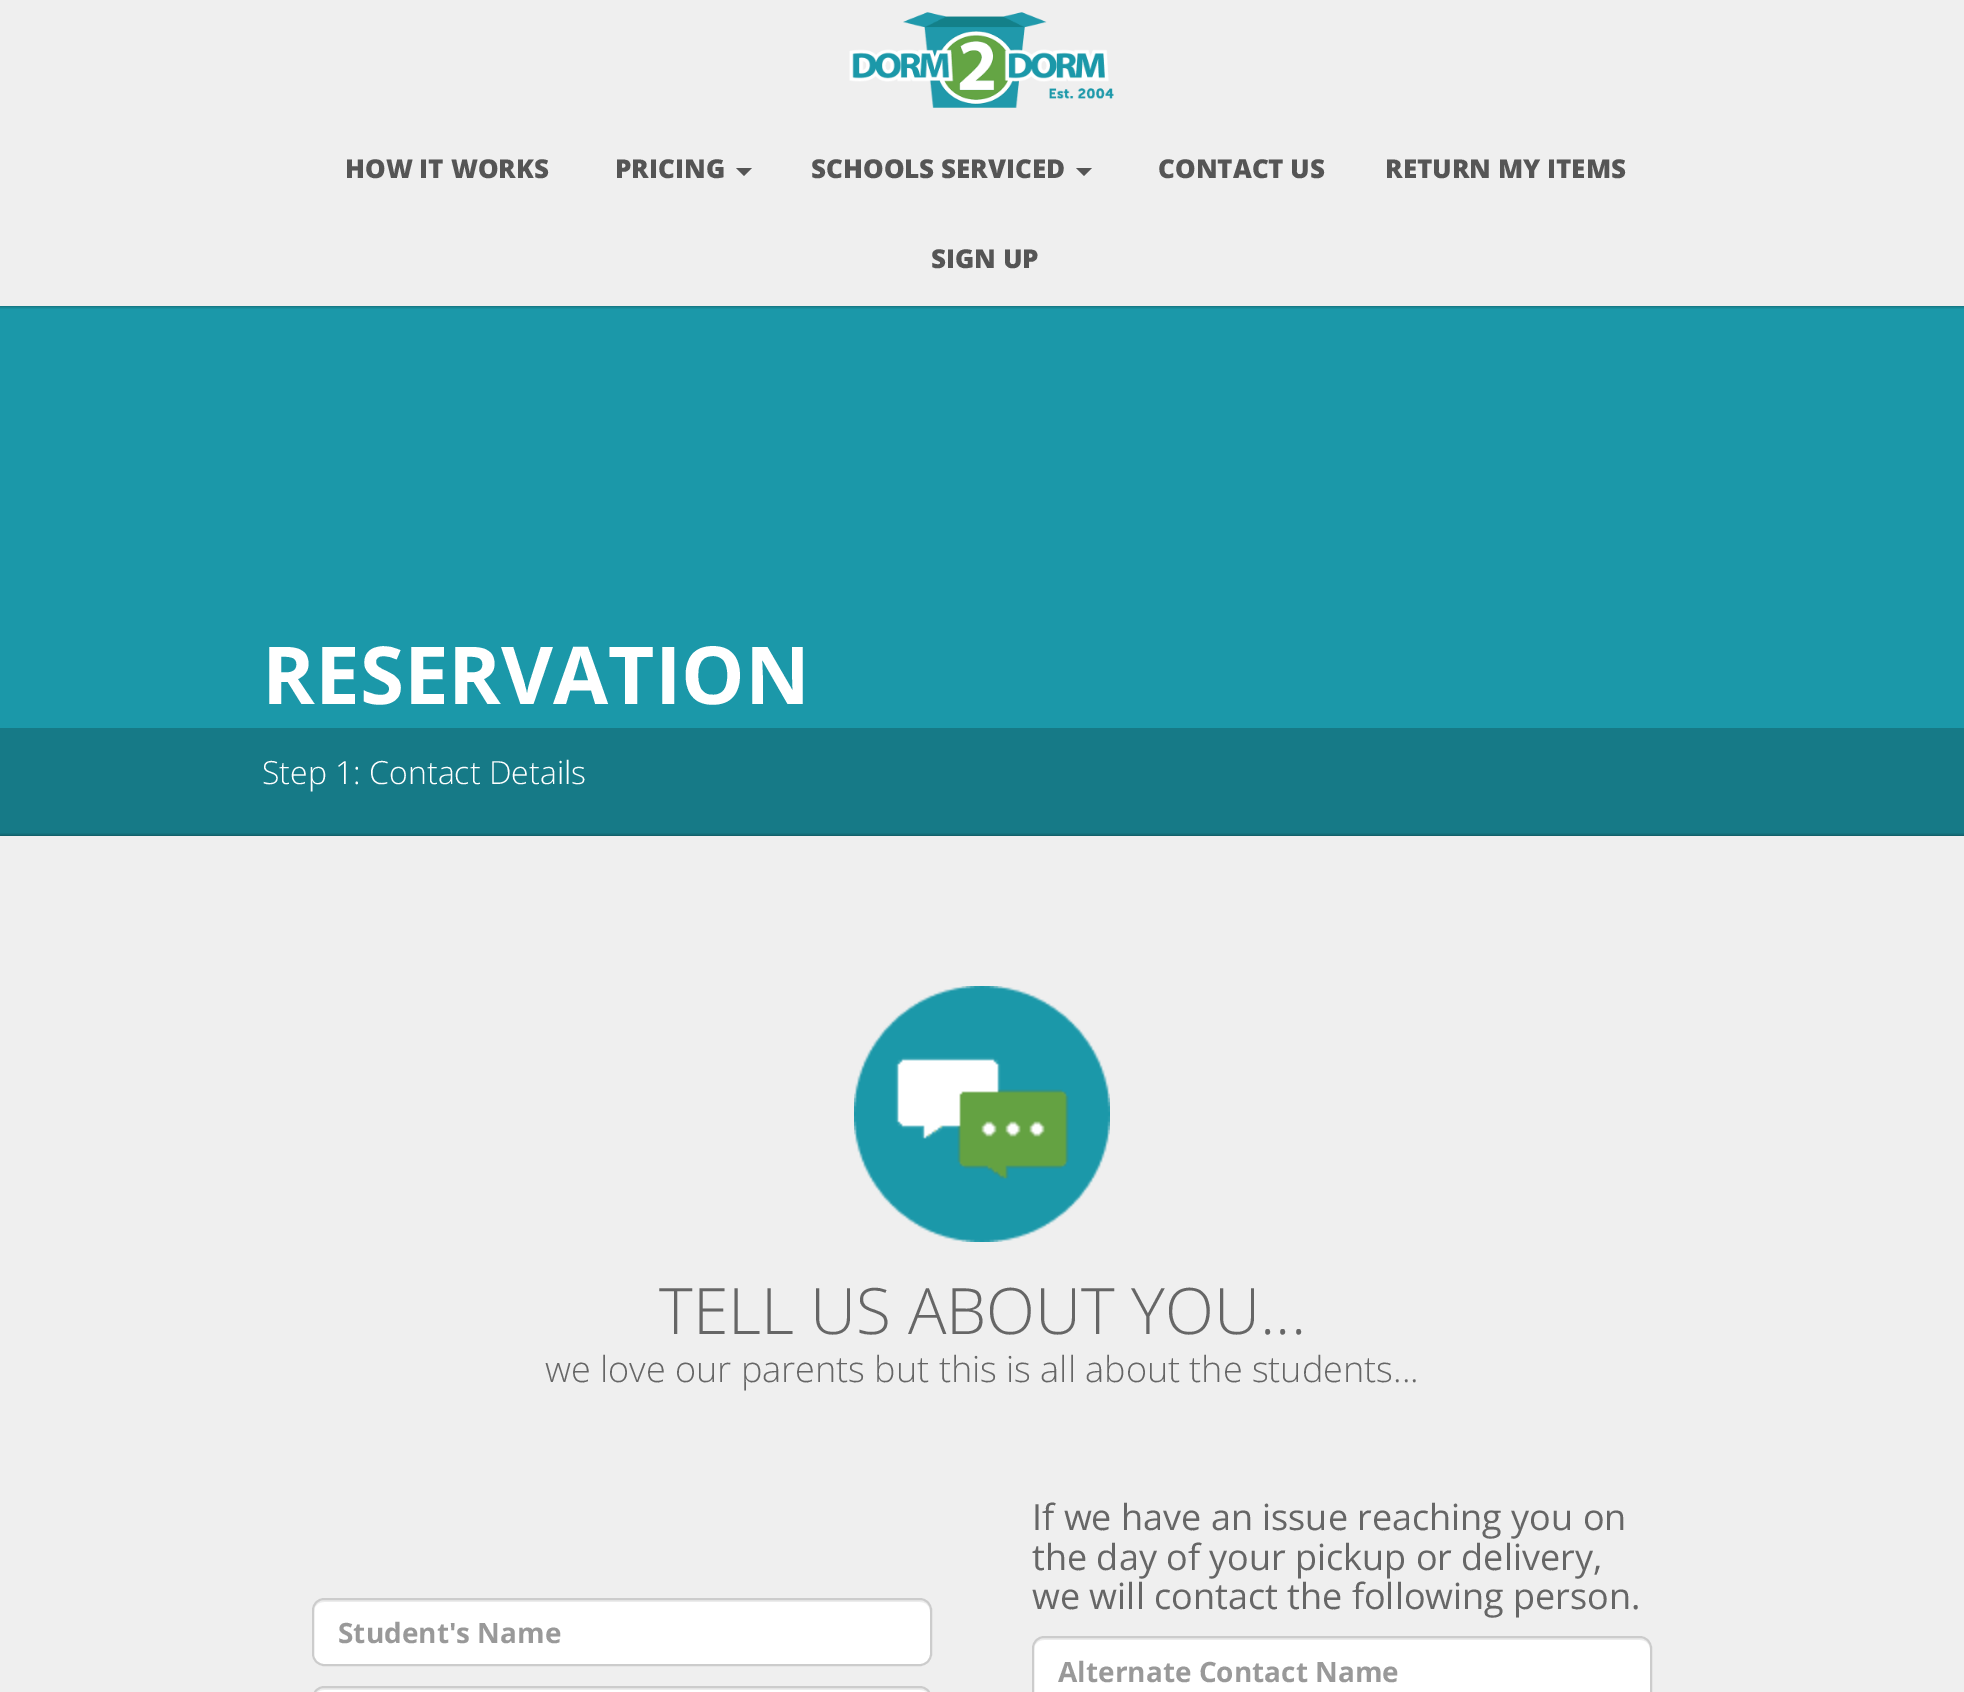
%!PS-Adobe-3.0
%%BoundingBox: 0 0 1964 1692
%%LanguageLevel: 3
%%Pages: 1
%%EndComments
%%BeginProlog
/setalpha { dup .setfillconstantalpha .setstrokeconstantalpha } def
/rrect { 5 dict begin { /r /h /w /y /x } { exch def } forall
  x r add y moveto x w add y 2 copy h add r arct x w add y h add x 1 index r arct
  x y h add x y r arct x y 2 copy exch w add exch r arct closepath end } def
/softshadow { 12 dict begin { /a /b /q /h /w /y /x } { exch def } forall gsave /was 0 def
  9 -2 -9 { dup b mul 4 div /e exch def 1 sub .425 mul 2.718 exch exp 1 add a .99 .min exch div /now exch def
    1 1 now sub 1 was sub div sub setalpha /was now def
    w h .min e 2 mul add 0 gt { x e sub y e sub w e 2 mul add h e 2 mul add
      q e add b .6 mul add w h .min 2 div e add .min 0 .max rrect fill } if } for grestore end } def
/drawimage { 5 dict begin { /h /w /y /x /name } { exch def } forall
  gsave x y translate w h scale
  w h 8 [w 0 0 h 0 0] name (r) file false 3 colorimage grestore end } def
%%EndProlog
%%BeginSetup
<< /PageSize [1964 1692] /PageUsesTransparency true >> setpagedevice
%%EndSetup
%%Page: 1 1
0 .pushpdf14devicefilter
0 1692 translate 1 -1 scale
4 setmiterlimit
0.937 setgray
0 0 1964 1692 rectfill
0.106 0.596 0.663 setrgbcolor
0 306 1964 422 rectfill
gsave
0 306 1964 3 rectclip
0 setgray
0 0 1964 306 0 2 0.5 softshadow
grestore
(images/1.raw) 849 12 265 96 drawimage
0.333 setgray
newpath 736 168 moveto 752 168 lineto 744 176 lineto closepath fill
newpath 1076 168 moveto 1092 168 lineto 1084 176 lineto closepath fill
0.086 0.478 0.529 setrgbcolor
0 728 1964 108 rectfill
gsave
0 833 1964 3 rectclip
0 setgray
0 836 1964 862 0 2 0.5 softshadow
grestore
(images/2.raw) 854 986 256 256 drawimage
1 setgray
312 1598 620 68 12 rrect fill
0.925 setgray
newpath 324 1602 moveto 920 1602 lineto 926 1602 930 1606 930 1612 curveto 930 1606 927 1600 920 1600 curveto 324 1600 lineto 317 1600 314 1606 314 1612 curveto 314 1606 318 1602 324 1602 curveto closepath fill
0.8 setgray
2 setlinewidth
313 1599 618 66 11 rrect stroke
1 setgray
312 1686 620 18 12 rrect fill
0.925 setgray
newpath 324 1690 moveto 920 1690 lineto 926 1690 930 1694 930 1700 curveto 930 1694 927 1688 920 1688 curveto 324 1688 lineto 317 1688 314 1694 314 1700 curveto 314 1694 318 1690 324 1690 curveto closepath fill
0.8 setgray
313 1687 618 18 11 rrect stroke
1 setgray
1032 1636 620 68 12 rrect fill
0.925 setgray
newpath 1044 1640 moveto 1640 1640 lineto 1646 1640 1650 1644 1650 1650 curveto 1650 1644 1647 1638 1640 1638 curveto 1044 1638 lineto 1037 1638 1034 1644 1034 1650 curveto 1034 1644 1038 1640 1044 1640 curveto closepath fill
0.8 setgray
1033 1637 618 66 11 rrect stroke
/OpenSans-ExtraBold [26 0 0 -26 0 0] selectfont
0.333 setgray
345 178 moveto (HOW IT WORKS) show
615 178 moveto (PRICING) show
811 178 moveto (SCHOOLS SERVICED) show
1158 178 moveto (CONTACT US) show
1385 178 moveto (RETURN MY ITEMS) show
931 268 moveto (SIGN UP) show
/OpenSans-Bold [80 0 0 -80 0 0] selectfont
1 setgray
262 704 moveto (RESERVATION) show
/OpenSans-Light [32 0 0 -32 0 0] selectfont
262 784 moveto (Step 1: Contact Details) show
/OpenSans-Light [64 0 0 -64 0 0] selectfont
0.4 setgray
659 1334 moveto (TELL US ABOUT YOU...) show
/OpenSans-Light [36 0 0 -36 0 0] selectfont
545 1382 moveto (we love our parents but this is all about the students...) show
/OpenSans-Bold [28 0 0 -28 0 0] selectfont
0.6 setgray
338 1643 moveto (Student's Name) show
/OpenSans-Regular [36 0 0 -36 0 0] selectfont
0.4 setgray
1032 1530 moveto (If we have an issue reaching you on) show
1032 1570 moveto (the day of your pickup or delivery,) show
1032 1609 moveto (we will contact the following person.) show
/OpenSans-Bold [28 0 0 -28 0 0] selectfont
0.6 setgray
1058 1682 moveto (Alternate Contact Name) show
.poppdf14devicefilter showpage
%%EOF
